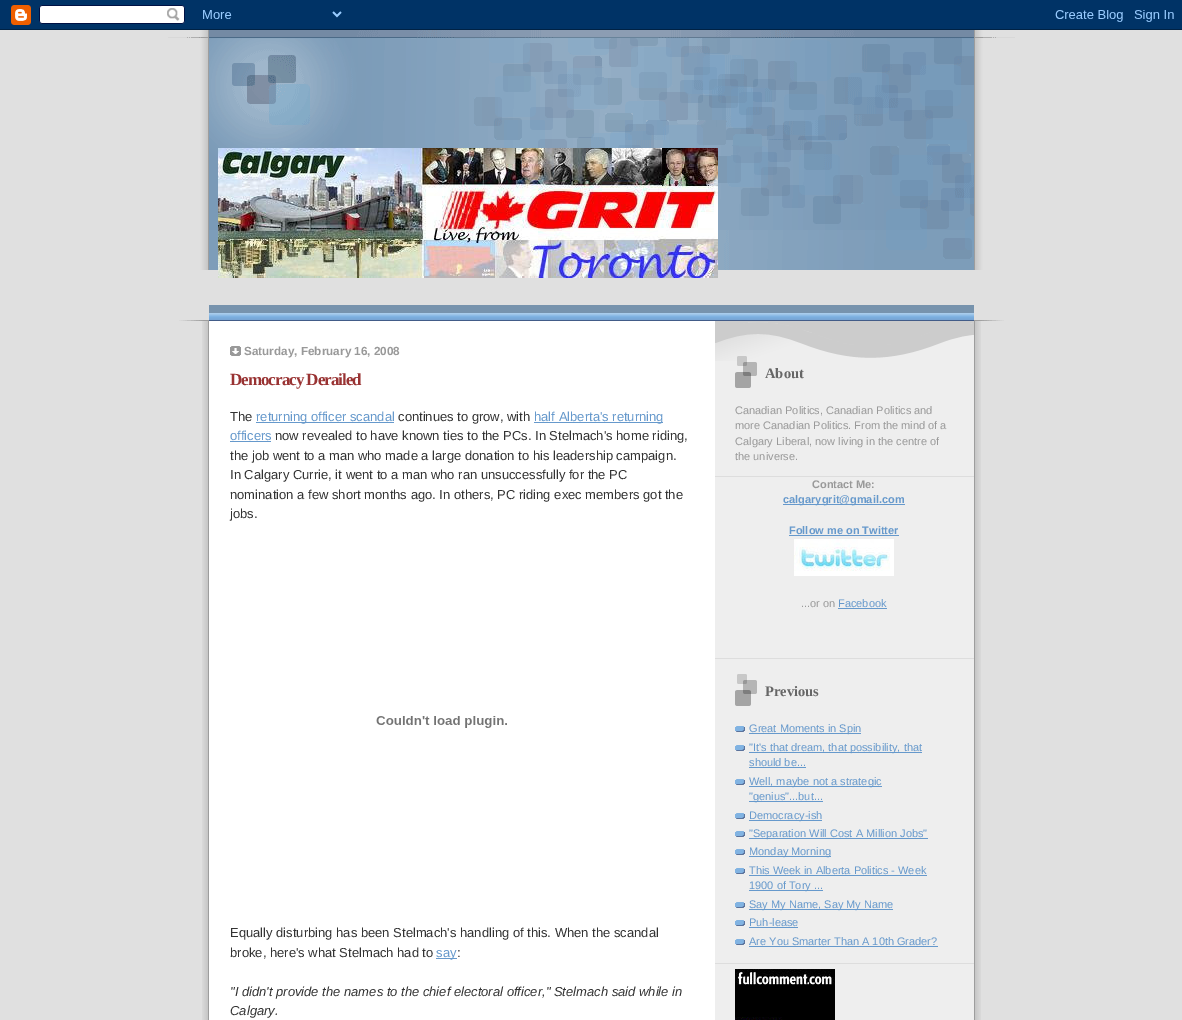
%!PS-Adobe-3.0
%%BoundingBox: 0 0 1182 1020
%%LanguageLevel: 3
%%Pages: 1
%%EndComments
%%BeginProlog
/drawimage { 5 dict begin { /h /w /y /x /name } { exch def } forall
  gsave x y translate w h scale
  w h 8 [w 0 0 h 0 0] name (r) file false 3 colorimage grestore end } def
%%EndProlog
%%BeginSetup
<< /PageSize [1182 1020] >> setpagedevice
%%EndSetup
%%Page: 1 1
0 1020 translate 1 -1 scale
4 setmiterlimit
0.878 setgray
0 0 1182 1020 rectfill
(images/1.raw) 0 0 1182 30 drawimage
(images/2.raw) 202 321 779 699 drawimage
(images/3.raw) 168 30 847 240 drawimage
(images/4.raw) 179 305 825 16 drawimage
(images/5.raw) 218 148 500 130 drawimage
(images/6.raw) 230 346 11 10 drawimage
0.4 0.6 0.8 setrgbcolor
256 422 138 1 rectfill
534 422 129 1 rectfill
230 441 41 1 rectfill
(images/7.raw) 376 716 131 12 drawimage
436 958 21 1 rectfill
(images/8.raw) 715 321 259 40 drawimage
(images/9.raw) 735 356 22 32 drawimage
0.867 setgray
715 476 259 1 rectfill
0.4 0.6 0.8 setrgbcolor
783 504 122 1 rectfill
789 535 110 1 rectfill
(images/10.raw) 794 539 100 37 drawimage
838 608 49 1 rectfill
0.867 setgray
715 658 259 1 rectfill
(images/11.raw) 735 674 22 32 drawimage
715 963 259 1 rectfill
(images/12.raw) 735 726 10 6 drawimage
0.4 0.6 0.8 setrgbcolor
749 733 112 1 rectfill
(images/12.raw) 735 745 10 6 drawimage
749 752 173 1 rectfill
749 767 57 1 rectfill
(images/12.raw) 735 779 10 6 drawimage
749 786 133 1 rectfill
749 801 74 1 rectfill
(images/12.raw) 735 813 10 6 drawimage
749 820 73 1 rectfill
(images/12.raw) 735 831 10 6 drawimage
749 838 179 1 rectfill
(images/12.raw) 735 849 10 6 drawimage
749 856 82 1 rectfill
(images/12.raw) 735 868 10 6 drawimage
749 875 178 1 rectfill
749 890 74 1 rectfill
(images/12.raw) 735 902 10 6 drawimage
749 909 144 1 rectfill
(images/12.raw) 735 920 10 6 drawimage
749 927 49 1 rectfill
(images/12.raw) 735 939 10 6 drawimage
749 946 189 1 rectfill
(images/13.raw) 735 969 100 51 drawimage
/LiberationSans-Bold [11.75 0 0 -11.75 0 0] selectfont
0.6 setgray
244 355 moveto (Saturday, February 16, 2008) show
/LiberationSerif-Bold [17 0 0 -17 0 0] selectfont
0.6 0.2 0.2 setrgbcolor
230 385 moveto -1 0 (Democracy Derailed) ashow
/LiberationSans-Regular [13 0 0 -13 0 0] selectfont
0.2 setgray
230 421 moveto (The) show
0.4 0.6 0.8 setrgbcolor
256 421 moveto (returning officer scandal) show
0.2 setgray
398 421 moveto (continues to grow, with) show
0.4 0.6 0.8 setrgbcolor
534 421 moveto (half Alberta's returning) show
230 440 moveto (officers) show
0.2 setgray
275 440 moveto (now revealed to have known ties to the PCs. In Stelmach's home riding,) show
230 460 moveto (the job went to a man who made a large donation to his leadership campaign.) show
230 479 moveto (In Calgary Currie, it went to a man who ran unsuccessfully for the PC) show
230 499 moveto (nomination a few short months ago. In others, PC riding exec members got the) show
230 518 moveto (jobs.) show
230 937 moveto (Equally disturbing has been Stelmach's handling of this. When the scandal) show
230 957 moveto (broke, here's what Stelmach had to) show
0.4 0.6 0.8 setrgbcolor
436 957 moveto (say) show
0.2 setgray
457 957 moveto (:) show
/LiberationSans-Italic [13 0 0 -13 0 0] selectfont
230 996 moveto ("I didn't provide the names to the chief electoral officer," Stelmach said while in) show
230 1015 moveto (Calgary.) show
/LiberationSerif-Bold [14.5 0 0 -14.5 0 0] selectfont
0.4 setgray
765 378 moveto (About) show
/LiberationSans-Regular [11 0 0 -11 0 0] selectfont
0.6 setgray
735 414 moveto (Canadian Politics, Canadian Politics and) show
735 429 moveto (more Canadian Politics. From the mind of a) show
735 445 moveto (Calgary Liberal, now living in the centre of) show
735 460 moveto (the universe.) show
/LiberationSans-Bold [11 0 0 -11 0 0] selectfont
812 488 moveto (Contact Me:) show
0.4 0.6 0.8 setrgbcolor
783 503 moveto (calgarygrit@gmail.com) show
789 534 moveto (Follow me on Twitter) show
/LiberationSans-Regular [11 0 0 -11 0 0] selectfont
0.6 setgray
801 607 moveto (...or on) show
0.4 0.6 0.8 setrgbcolor
838 607 moveto (Facebook) show
/LiberationSerif-Bold [14.5 0 0 -14.5 0 0] selectfont
0.4 setgray
765 696 moveto (Previous) show
/LiberationSans-Regular [11 0 0 -11 0 0] selectfont
0.4 0.6 0.8 setrgbcolor
749 732 moveto (Great Moments in Spin) show
749 751 moveto ("It's that dream, that possibility, that) show
749 766 moveto (should be...) show
749 785 moveto (Well, maybe not a strategic) show
749 800 moveto ("genius"...but...) show
749 819 moveto (Democracy-ish) show
749 837 moveto ("Separation Will Cost A Million Jobs") show
749 855 moveto (Monday Morning) show
749 874 moveto (This Week in Alberta Politics - Week) show
749 889 moveto (1900 of Tory ...) show
749 908 moveto (Say My Name, Say My Name) show
749 926 moveto (Puh-lease) show
749 945 moveto (Are You Smarter Than A 10th Grader?) show
showpage
%%EOF
